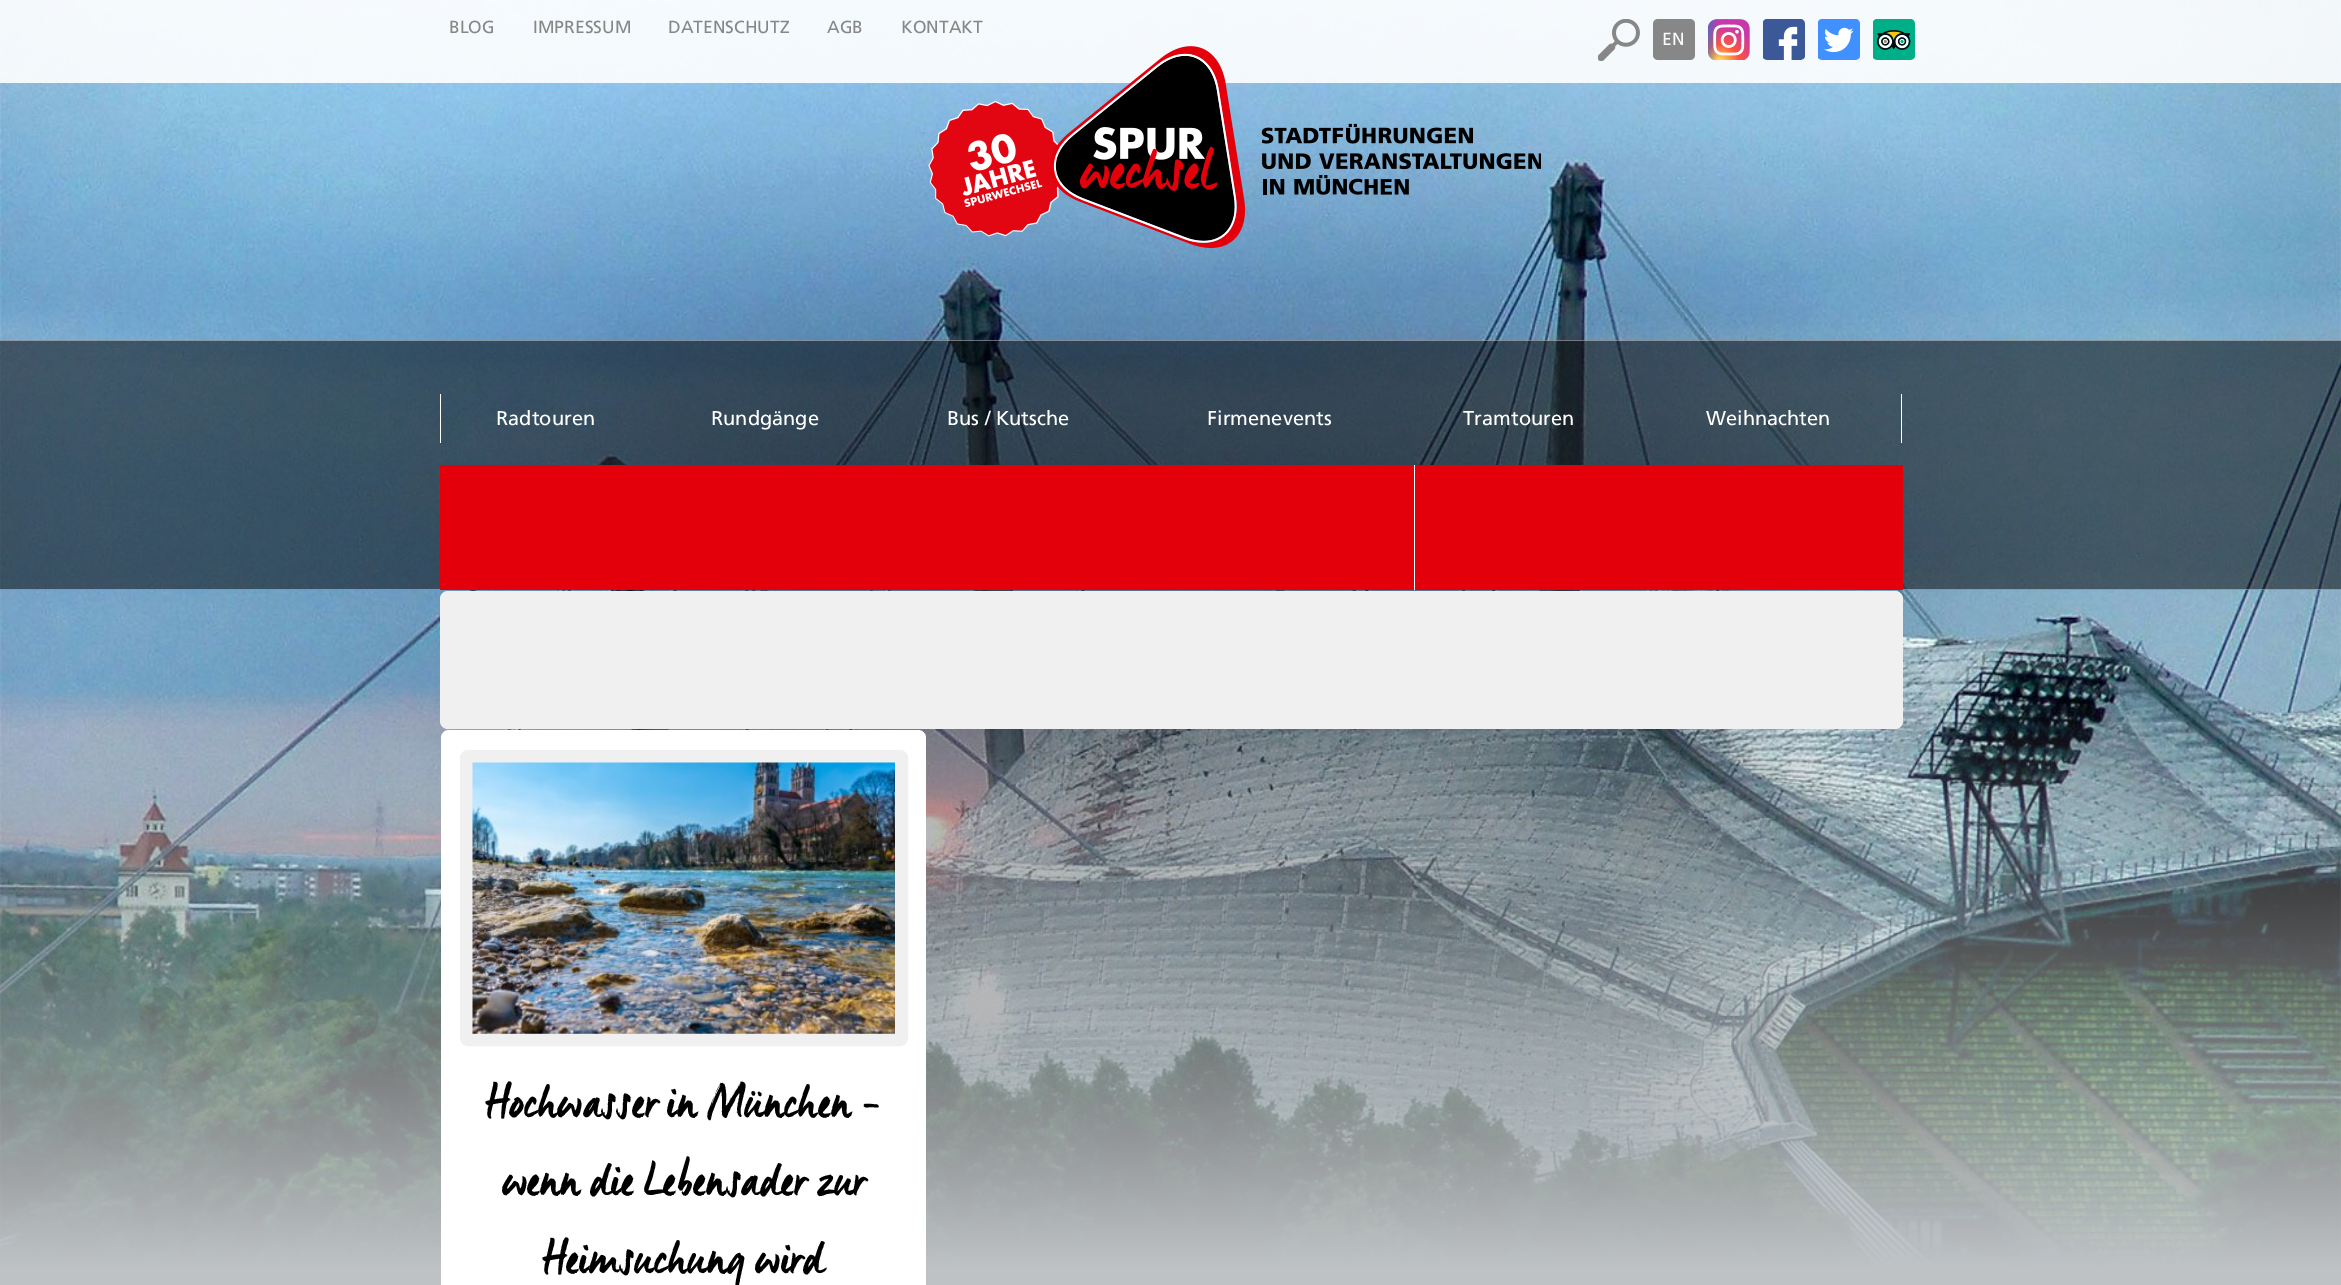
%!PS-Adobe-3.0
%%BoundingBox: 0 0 2341 1285
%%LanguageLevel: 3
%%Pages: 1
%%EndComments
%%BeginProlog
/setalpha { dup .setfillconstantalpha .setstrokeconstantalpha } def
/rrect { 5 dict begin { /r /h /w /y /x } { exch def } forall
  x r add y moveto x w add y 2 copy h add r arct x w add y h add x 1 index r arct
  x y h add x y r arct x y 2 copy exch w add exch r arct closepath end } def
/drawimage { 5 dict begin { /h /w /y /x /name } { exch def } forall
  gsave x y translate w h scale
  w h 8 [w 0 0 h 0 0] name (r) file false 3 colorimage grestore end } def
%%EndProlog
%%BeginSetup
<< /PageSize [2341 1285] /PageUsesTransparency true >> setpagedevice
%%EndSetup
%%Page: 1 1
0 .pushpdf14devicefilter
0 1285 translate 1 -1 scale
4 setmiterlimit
1 setgray
0 0 2341 1285 rectfill
(images/1.raw) 0 0 2341 1285 drawimage
0.9 setalpha
0 0 2341 83 rectfill
1 setalpha
(images/2.raw) 1598 19 42 42 drawimage
0.525 0.529 0.525 setrgbcolor
1653 19 42 41 5 rrect fill
(images/3.raw) 1708 19 42 41 drawimage
(images/4.raw) 1763 19 42 41 drawimage
(images/5.raw) 1818 19 42 41 drawimage
(images/6.raw) 1873 19 42 41 drawimage
(images/8.raw) 928 100 134 137 drawimage
(images/7.raw) 1050 46 491 202 drawimage
0.5 setalpha
0 setgray
0 340 2341 250 rectfill
0.4 setalpha
1 setgray
0 340 2341 1 rectfill
0 589 2341 1 rectfill
1 setalpha
440 394 1 49 rectfill
1901 394 1 49 rectfill
0.89 0 0.043 setrgbcolor
440 465 1463 125 rectfill
0.996 setgray
1414 465 1 125 rectfill
0.941 setgray
440 591 1463 138 8 rrect fill
1 setgray
441 730 485 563 8 rrect fill
0.941 setgray
13 setlinewidth
466.5 756.5 435 283 1.5 rrect stroke
(images/9.raw) 472 762 423 272 drawimage
/Frutiger-Regular [17.5 0 0 -17.5 0 0] selectfont
0.525 0.529 0.525 setrgbcolor
449 33 moveto (BLOG) show
533 33 moveto (IMPRESSUM) show
668 33 moveto (DATENSCHUTZ) show
827 33 moveto (AGB) show
901 33 moveto (KONTAKT) show
0.996 setgray
1662 45 moveto (EN) show
/Frutiger-Regular [20 0 0 -20 0 0] selectfont
496 425 moveto (Radtouren) show
711 425 moveto (Rundgänge) show
947 425 moveto (Bus / Kutsche) show
1207 425 moveto (Firmenevents) show
1463 425 moveto (Tramtouren) show
1706 425 moveto (Weihnachten) show
/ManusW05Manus-Regular [48.75 0 0 -48.75 0 0] selectfont
0 setgray
485 1117 moveto (Hochwasser in München –) show
502 1195 moveto (wenn die Lebensader zur) show
542 1273 moveto (Heimsuchung wird) show
.poppdf14devicefilter showpage
%%EOF
